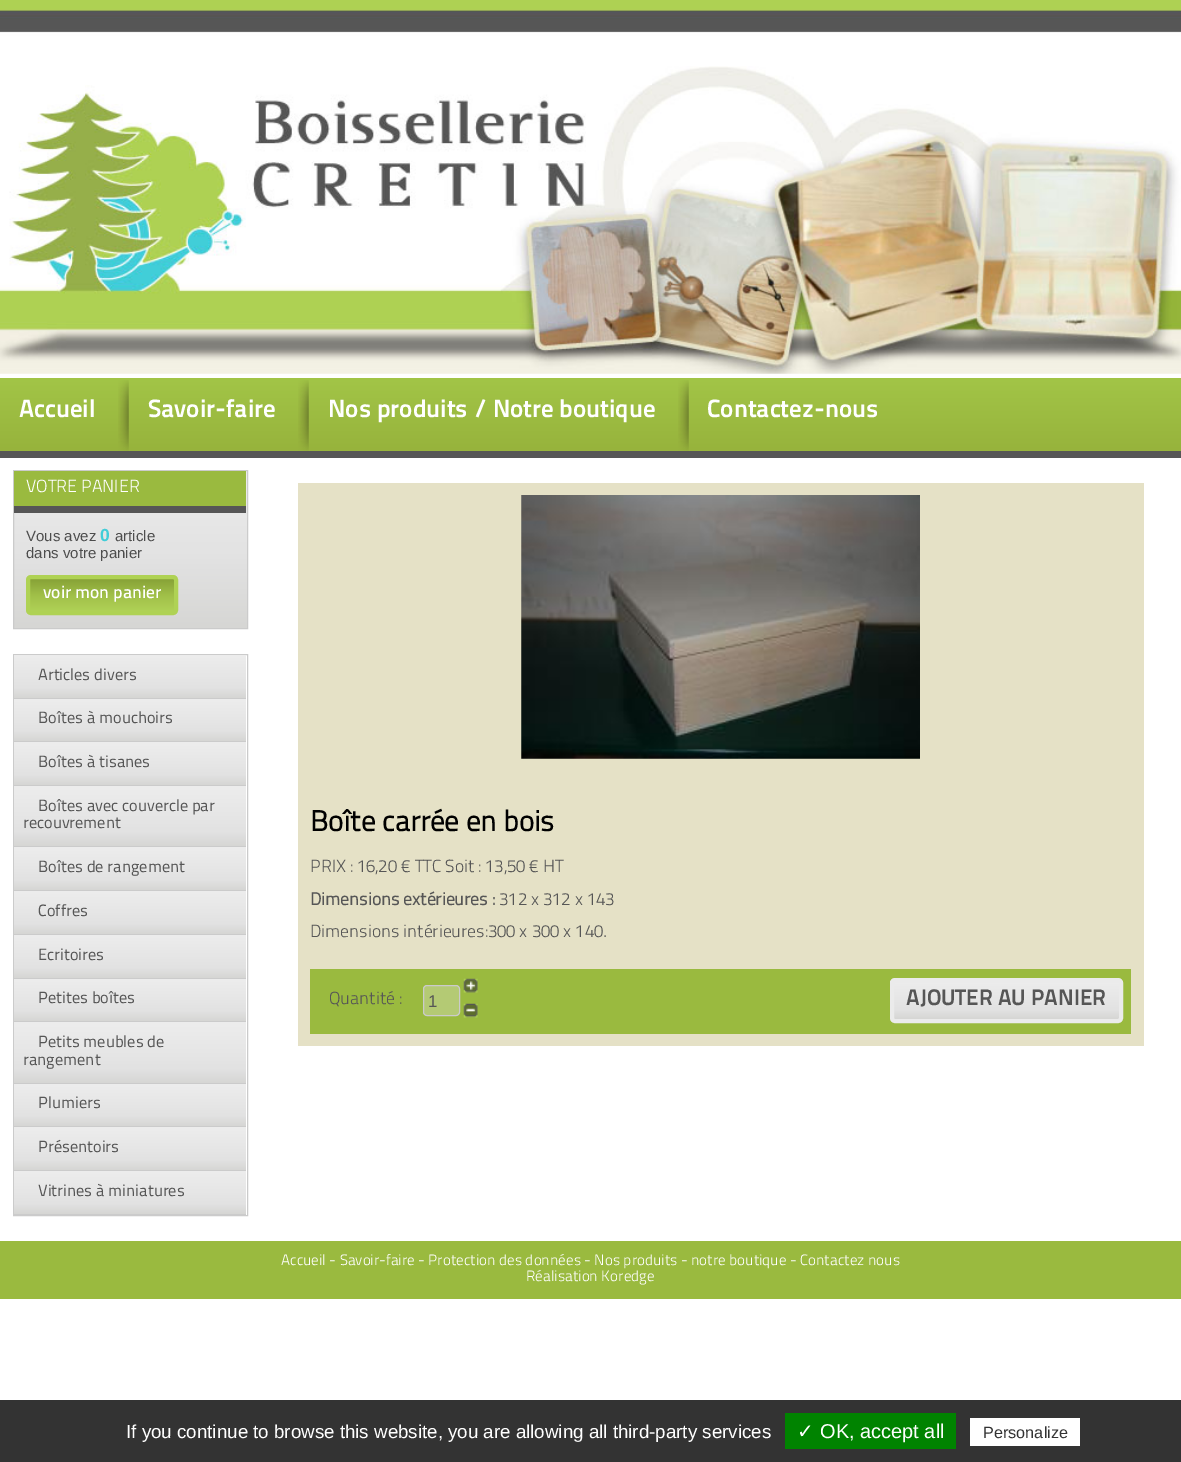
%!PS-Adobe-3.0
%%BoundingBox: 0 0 1181 1462
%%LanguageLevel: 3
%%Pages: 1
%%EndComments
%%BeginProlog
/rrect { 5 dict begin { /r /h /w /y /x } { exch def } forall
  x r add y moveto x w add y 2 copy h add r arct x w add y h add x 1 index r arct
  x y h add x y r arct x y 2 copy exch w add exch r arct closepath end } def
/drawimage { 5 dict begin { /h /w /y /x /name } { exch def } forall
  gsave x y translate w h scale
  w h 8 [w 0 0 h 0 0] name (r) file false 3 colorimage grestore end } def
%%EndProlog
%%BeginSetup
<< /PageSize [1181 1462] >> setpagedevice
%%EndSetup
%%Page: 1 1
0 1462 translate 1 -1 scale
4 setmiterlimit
1 setgray
0 0 1181 1462 rectfill
(images/1.raw) 0 0 1181 374 drawimage
gsave newpath 0 378 moveto 1181 378 lineto 1181 451 lineto 0 451 lineto closepath clip newpath
<< /ShadingType 2 /ColorSpace /DeviceRGB /Coords [591 377 591 451] /Extend [true true] /Function << /FunctionType 2 /Domain [0 1] /C0 [0.635 0.773 0.278] /C1 [0.592 0.702 0.235] /N 1 >> >> shfill grestore
0.337 setgray
0 451 1181 7 rectfill
(images/2.raw) 118 380 11 71 drawimage
(images/3.raw) 298 380 11 71 drawimage
(images/2.raw) 678 380 11 71 drawimage
gsave newpath 14 471 moveto 247 471 lineto 247 628 lineto 14 628 lineto closepath clip newpath
<< /ShadingType 2 /ColorSpace /DeviceRGB /Coords [130 471 130 628] /Extend [true true] /Function << /FunctionType 3 /Domain [0 1] /Functions [<< /FunctionType 2 /Domain [0 1] /C0 [0.929 0.929 0.929] /C1 [0.886 0.886 0.886] /N 1 >> << /FunctionType 2 /Domain [0 1] /C0 [0.886 0.886 0.886] /C1 [0.839 0.839 0.831] /N 1 >>] /Bounds [0.56] /Encode [0 1 0 1] >> >> shfill grestore
0.796 setgray
13.5 470.5 234 158 rectstroke
0.604 0.729 0.247 setrgbcolor
14 471 232 35 rectfill
0.337 setgray
14 506 232 7 rectfill
gsave newpath 26 579 moveto 178 579 lineto 178 611 lineto 26 611 lineto closepath clip newpath
<< /ShadingType 2 /ColorSpace /DeviceRGB /Coords [102 579 102 611] /Extend [true true] /Function << /FunctionType 3 /Domain [0 1] /Functions [<< /FunctionType 2 /Domain [0 1] /C0 [0.529 0.635 0.216] /C1 [0.631 0.753 0.286] /N 1 >> << /FunctionType 2 /Domain [0 1] /C0 [0.631 0.753 0.286] /C1 [0.686 0.82 0.337] /N 1 >>] /Bounds [0.52] /Encode [0 1 0 1] >> >> shfill grestore
0.686 0.824 0.329 setrgbcolor
4 setlinewidth
28 577 148 36 3 rrect stroke
0.796 setgray
1 setlinewidth
13.5 654.5 234 561 rectstroke
gsave newpath 14 655 moveto 246 655 lineto 246 698 lineto 14 698 lineto closepath clip newpath
<< /ShadingType 2 /ColorSpace /DeviceRGB /Coords [130 655 130 698] /Extend [true true] /Function << /FunctionType 3 /Domain [0 1] /Functions [<< /FunctionType 2 /Domain [0 1] /C0 [0.929 0.929 0.929] /C1 [0.886 0.886 0.886] /N 1 >> << /FunctionType 2 /Domain [0 1] /C0 [0.886 0.886 0.886] /C1 [0.839 0.839 0.831] /N 1 >>] /Bounds [0.76] /Encode [0 1 0 1] >> >> shfill grestore
14 698 232 1 rectfill
gsave newpath 14 699 moveto 246 699 lineto 246 741 lineto 14 741 lineto closepath clip newpath
<< /ShadingType 2 /ColorSpace /DeviceRGB /Coords [130 699 130 741] /Extend [true true] /Function << /FunctionType 3 /Domain [0 1] /Functions [<< /FunctionType 2 /Domain [0 1] /C0 [0.929 0.929 0.929] /C1 [0.886 0.886 0.886] /N 1 >> << /FunctionType 2 /Domain [0 1] /C0 [0.886 0.886 0.886] /C1 [0.839 0.839 0.831] /N 1 >>] /Bounds [0.76] /Encode [0 1 0 1] >> >> shfill grestore
gsave newpath 14 742 moveto 246 742 lineto 246 743 lineto 14 743 lineto closepath clip newpath
<< /ShadingType 2 /ColorSpace /DeviceRGB /Coords [130 741 130 784] /Extend [true true] /Function << /FunctionType 3 /Domain [0 1] /Functions [<< /FunctionType 2 /Domain [0 1] /C0 [0.929 0.929 0.929] /C1 [0.886 0.886 0.886] /N 1 >> << /FunctionType 2 /Domain [0 1] /C0 [0.886 0.886 0.886] /C1 [0.839 0.839 0.831] /N 1 >>] /Bounds [0.76] /Encode [0 1 0 1] >> >> shfill grestore
14 741 232 1 rectfill
gsave newpath 14 743 moveto 246 743 lineto 246 785 lineto 14 785 lineto closepath clip newpath
<< /ShadingType 2 /ColorSpace /DeviceRGB /Coords [130 743 130 785] /Extend [true true] /Function << /FunctionType 3 /Domain [0 1] /Functions [<< /FunctionType 2 /Domain [0 1] /C0 [0.929 0.929 0.929] /C1 [0.886 0.886 0.886] /N 1 >> << /FunctionType 2 /Domain [0 1] /C0 [0.886 0.886 0.886] /C1 [0.839 0.839 0.831] /N 1 >>] /Bounds [0.76] /Encode [0 1 0 1] >> >> shfill grestore
14 785 232 1 rectfill
gsave newpath 14 786 moveto 246 786 lineto 246 846 lineto 14 846 lineto closepath clip newpath
<< /ShadingType 2 /ColorSpace /DeviceRGB /Coords [130 786 130 846] /Extend [true true] /Function << /FunctionType 3 /Domain [0 1] /Functions [<< /FunctionType 2 /Domain [0 1] /C0 [0.929 0.929 0.929] /C1 [0.886 0.886 0.886] /N 1 >> << /FunctionType 2 /Domain [0 1] /C0 [0.886 0.886 0.886] /C1 [0.839 0.839 0.831] /N 1 >>] /Bounds [0.76] /Encode [0 1 0 1] >> >> shfill grestore
gsave newpath 14 847 moveto 246 847 lineto 246 848 lineto 14 848 lineto closepath clip newpath
<< /ShadingType 2 /ColorSpace /DeviceRGB /Coords [130 846 130 906] /Extend [true true] /Function << /FunctionType 3 /Domain [0 1] /Functions [<< /FunctionType 2 /Domain [0 1] /C0 [0.929 0.929 0.929] /C1 [0.886 0.886 0.886] /N 1 >> << /FunctionType 2 /Domain [0 1] /C0 [0.886 0.886 0.886] /C1 [0.839 0.839 0.831] /N 1 >>] /Bounds [0.76] /Encode [0 1 0 1] >> >> shfill grestore
14 846 232 1 rectfill
gsave newpath 14 848 moveto 246 848 lineto 246 890 lineto 14 890 lineto closepath clip newpath
<< /ShadingType 2 /ColorSpace /DeviceRGB /Coords [130 848 130 890] /Extend [true true] /Function << /FunctionType 3 /Domain [0 1] /Functions [<< /FunctionType 2 /Domain [0 1] /C0 [0.929 0.929 0.929] /C1 [0.886 0.886 0.886] /N 1 >> << /FunctionType 2 /Domain [0 1] /C0 [0.886 0.886 0.886] /C1 [0.839 0.839 0.831] /N 1 >>] /Bounds [0.76] /Encode [0 1 0 1] >> >> shfill grestore
14 890 232 1 rectfill
gsave newpath 14 891 moveto 246 891 lineto 246 934 lineto 14 934 lineto closepath clip newpath
<< /ShadingType 2 /ColorSpace /DeviceRGB /Coords [130 891 130 934] /Extend [true true] /Function << /FunctionType 3 /Domain [0 1] /Functions [<< /FunctionType 2 /Domain [0 1] /C0 [0.929 0.929 0.929] /C1 [0.886 0.886 0.886] /N 1 >> << /FunctionType 2 /Domain [0 1] /C0 [0.886 0.886 0.886] /C1 [0.839 0.839 0.831] /N 1 >>] /Bounds [0.76] /Encode [0 1 0 1] >> >> shfill grestore
14 934 232 1 rectfill
gsave newpath 14 935 moveto 246 935 lineto 246 978 lineto 14 978 lineto closepath clip newpath
<< /ShadingType 2 /ColorSpace /DeviceRGB /Coords [130 935 130 978] /Extend [true true] /Function << /FunctionType 3 /Domain [0 1] /Functions [<< /FunctionType 2 /Domain [0 1] /C0 [0.929 0.929 0.929] /C1 [0.886 0.886 0.886] /N 1 >> << /FunctionType 2 /Domain [0 1] /C0 [0.886 0.886 0.886] /C1 [0.839 0.839 0.831] /N 1 >>] /Bounds [0.76] /Encode [0 1 0 1] >> >> shfill grestore
14 978 232 1 rectfill
gsave newpath 14 979 moveto 246 979 lineto 246 1021 lineto 14 1021 lineto closepath clip newpath
<< /ShadingType 2 /ColorSpace /DeviceRGB /Coords [130 979 130 1021] /Extend [true true] /Function << /FunctionType 3 /Domain [0 1] /Functions [<< /FunctionType 2 /Domain [0 1] /C0 [0.929 0.929 0.929] /C1 [0.886 0.886 0.886] /N 1 >> << /FunctionType 2 /Domain [0 1] /C0 [0.886 0.886 0.886] /C1 [0.839 0.839 0.831] /N 1 >>] /Bounds [0.76] /Encode [0 1 0 1] >> >> shfill grestore
gsave newpath 14 1022 moveto 246 1022 lineto 246 1023 lineto 14 1023 lineto closepath clip newpath
<< /ShadingType 2 /ColorSpace /DeviceRGB /Coords [130 1021 130 1064] /Extend [true true] /Function << /FunctionType 3 /Domain [0 1] /Functions [<< /FunctionType 2 /Domain [0 1] /C0 [0.929 0.929 0.929] /C1 [0.886 0.886 0.886] /N 1 >> << /FunctionType 2 /Domain [0 1] /C0 [0.886 0.886 0.886] /C1 [0.839 0.839 0.831] /N 1 >>] /Bounds [0.76] /Encode [0 1 0 1] >> >> shfill grestore
14 1021 232 1 rectfill
gsave newpath 14 1023 moveto 246 1023 lineto 246 1083 lineto 14 1083 lineto closepath clip newpath
<< /ShadingType 2 /ColorSpace /DeviceRGB /Coords [130 1023 130 1083] /Extend [true true] /Function << /FunctionType 3 /Domain [0 1] /Functions [<< /FunctionType 2 /Domain [0 1] /C0 [0.929 0.929 0.929] /C1 [0.886 0.886 0.886] /N 1 >> << /FunctionType 2 /Domain [0 1] /C0 [0.886 0.886 0.886] /C1 [0.839 0.839 0.831] /N 1 >>] /Bounds [0.76] /Encode [0 1 0 1] >> >> shfill grestore
14 1083 232 1 rectfill
gsave newpath 14 1084 moveto 246 1084 lineto 246 1126 lineto 14 1126 lineto closepath clip newpath
<< /ShadingType 2 /ColorSpace /DeviceRGB /Coords [130 1084 130 1126] /Extend [true true] /Function << /FunctionType 3 /Domain [0 1] /Functions [<< /FunctionType 2 /Domain [0 1] /C0 [0.929 0.929 0.929] /C1 [0.886 0.886 0.886] /N 1 >> << /FunctionType 2 /Domain [0 1] /C0 [0.886 0.886 0.886] /C1 [0.839 0.839 0.831] /N 1 >>] /Bounds [0.76] /Encode [0 1 0 1] >> >> shfill grestore
gsave newpath 14 1127 moveto 246 1127 lineto 246 1128 lineto 14 1128 lineto closepath clip newpath
<< /ShadingType 2 /ColorSpace /DeviceRGB /Coords [130 1126 130 1169] /Extend [true true] /Function << /FunctionType 3 /Domain [0 1] /Functions [<< /FunctionType 2 /Domain [0 1] /C0 [0.929 0.929 0.929] /C1 [0.886 0.886 0.886] /N 1 >> << /FunctionType 2 /Domain [0 1] /C0 [0.886 0.886 0.886] /C1 [0.839 0.839 0.831] /N 1 >>] /Bounds [0.76] /Encode [0 1 0 1] >> >> shfill grestore
14 1126 232 1 rectfill
gsave newpath 14 1128 moveto 246 1128 lineto 246 1170 lineto 14 1170 lineto closepath clip newpath
<< /ShadingType 2 /ColorSpace /DeviceRGB /Coords [130 1128 130 1170] /Extend [true true] /Function << /FunctionType 3 /Domain [0 1] /Functions [<< /FunctionType 2 /Domain [0 1] /C0 [0.929 0.929 0.929] /C1 [0.886 0.886 0.886] /N 1 >> << /FunctionType 2 /Domain [0 1] /C0 [0.886 0.886 0.886] /C1 [0.839 0.839 0.831] /N 1 >>] /Bounds [0.76] /Encode [0 1 0 1] >> >> shfill grestore
14 1170 232 1 rectfill
gsave newpath 14 1171 moveto 246 1171 lineto 246 1214 lineto 14 1214 lineto closepath clip newpath
<< /ShadingType 2 /ColorSpace /DeviceRGB /Coords [130 1171 130 1214] /Extend [true true] /Function << /FunctionType 3 /Domain [0 1] /Functions [<< /FunctionType 2 /Domain [0 1] /C0 [0.929 0.929 0.929] /C1 [0.886 0.886 0.886] /N 1 >> << /FunctionType 2 /Domain [0 1] /C0 [0.886 0.886 0.886] /C1 [0.839 0.839 0.831] /N 1 >>] /Bounds [0.76] /Encode [0 1 0 1] >> >> shfill grestore
14 1214 232 1 rectfill
0.898 0.882 0.776 setrgbcolor
298 483 846 563 rectfill
(images/4.raw) 521 495 399 264 drawimage
0.604 0.729 0.247 setrgbcolor
310 969 821 65 rectfill
0.706 0.792 0.455 setrgbcolor
423.5 985.5 36 30 3.5 rrect gsave fill grestore
0.796 setgray
stroke
(images/5.raw) 463 978 15 15 drawimage
(images/6.raw) 463 1003 15 15 drawimage
gsave newpath 890 981 moveto 1123 981 lineto 1123 1019 lineto 890 1019 lineto closepath clip newpath
<< /ShadingType 2 /ColorSpace /DeviceRGB /Coords [1006 981 1006 1019] /Extend [true true] /Function << /FunctionType 3 /Domain [0 1] /Functions [<< /FunctionType 2 /Domain [0 1] /C0 [0.929 0.929 0.929] /C1 [0.886 0.886 0.886] /N 1 >> << /FunctionType 2 /Domain [0 1] /C0 [0.886 0.886 0.886] /C1 [0.839 0.839 0.831] /N 1 >>] /Bounds [0.76] /Encode [0 1 0 1] >> >> shfill grestore
0.922 setgray
4 setlinewidth
892 980 229 41 3 rrect stroke
0.604 0.729 0.247 setrgbcolor
0 1241 1181 58 rectfill
0.2 setgray
0 1400 1181 62 rectfill
0 0.514 0 setrgbcolor
785 1413 171 36 rectfill
1 setgray
970 1418 110 28 rectfill
/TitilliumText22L-Bold [25 0 0 -25 0 0] selectfont
19 417 moveto (Accueil) show
148 417 moveto (Savoir-faire) show
328 417 moveto (Nos produits / Notre boutique) show
707 417 moveto (Contactez-nous) show
/TitilliumText22L-Light [17.5 0 0 -17.5 0 0] selectfont
26 492 moveto (VOTRE PANIER) show
/LiberationSans-Regular [15 0 0 -15 0 0] selectfont
0.302 setgray
26 541 moveto (Vous avez) show
/LiberationSans-Bold [17.5 0 0 -17.5 0 0] selectfont
0.255 0.804 0.847 setrgbcolor
100 541 moveto (0) show
/LiberationSans-Regular [15 0 0 -15 0 0] selectfont
0.302 setgray
115 541 moveto (article) show
26 558 moveto (dans votre panier) show
/TitilliumText22L-Medium [17.5 0 0 -17.5 0 0] selectfont
1 setgray
43 598 moveto (voir mon panier) show
/TitilliumText22L-Regular [16.25 0 0 -16.25 0 0] selectfont
0.337 setgray
38 680 moveto (Articles divers) show
38 723 moveto (Boîtes à mouchoirs) show
38 767 moveto (Boîtes à tisanes) show
38 811 moveto (Boîtes avec couvercle par) show
23 828 moveto (recouvrement) show
38 872 moveto (Boîtes de rangement) show
38 916 moveto (Coffres) show
38 960 moveto (Ecritoires) show
38 1003 moveto (Petites boîtes) show
38 1047 moveto (Petits meubles de) show
23 1065 moveto (rangement) show
38 1108 moveto (Plumiers) show
38 1152 moveto (Présentoirs) show
38 1196 moveto (Vitrines à miniatures) show
/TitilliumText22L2-Bold [28.75 0 0 -28.75 0 0] selectfont
0 setgray
310 831 moveto (Boîte carrée en bois) show
/TitilliumText22L-Light [17.5 0 0 -17.5 0 0] selectfont
0.337 setgray
310 872 moveto (PRIX : 16,20 € TTC Soit : 13,50 € HT) show
/TitilliumText22L2-Bold [17.5 0 0 -17.5 0 0] selectfont
310 905 moveto (Dimensions extérieures :) show
/TitilliumText22L-Light [17.5 0 0 -17.5 0 0] selectfont
499 905 moveto (312 x 312 x 143) show
310 937 moveto (Dimensions intérieures:300 x 300 x 140.) show
329 1004 moveto (Quantité :) show
/LiberationSans-Regular [17 0 0 -17 0 0] selectfont
428 1007 moveto (1) show
/TitilliumText22L-Bold [22.5 0 0 -22.5 0 0] selectfont
906 1005 moveto (AJOUTER AU PANIER) show
/TitilliumText22L-Light [15 0 0 -15 0 0] selectfont
1 setgray
281 1265 moveto (Accueil - Savoir-faire - Protection des données - Nos produits - notre boutique - Contactez nous) show
526 1281 moveto (Réalisation Koredge) show
/LiberationSans-Regular [18.75 0 0 -18.75 0 0] selectfont
126 1438 moveto (If you continue to browse this website, you are allowing all third-party services) show
/DejaVuSans-Regular [20 0 0 -20 0 0] selectfont
797 1438 moveto (✓) show
/LiberationSans-Regular [20 0 0 -20 0 0] selectfont
820 1438 moveto (OK, accept all) show
/LiberationSans-Regular [16.25 0 0 -16.25 0 0] selectfont
0.2 setgray
983 1438 moveto (Personalize) show
showpage
%%EOF
